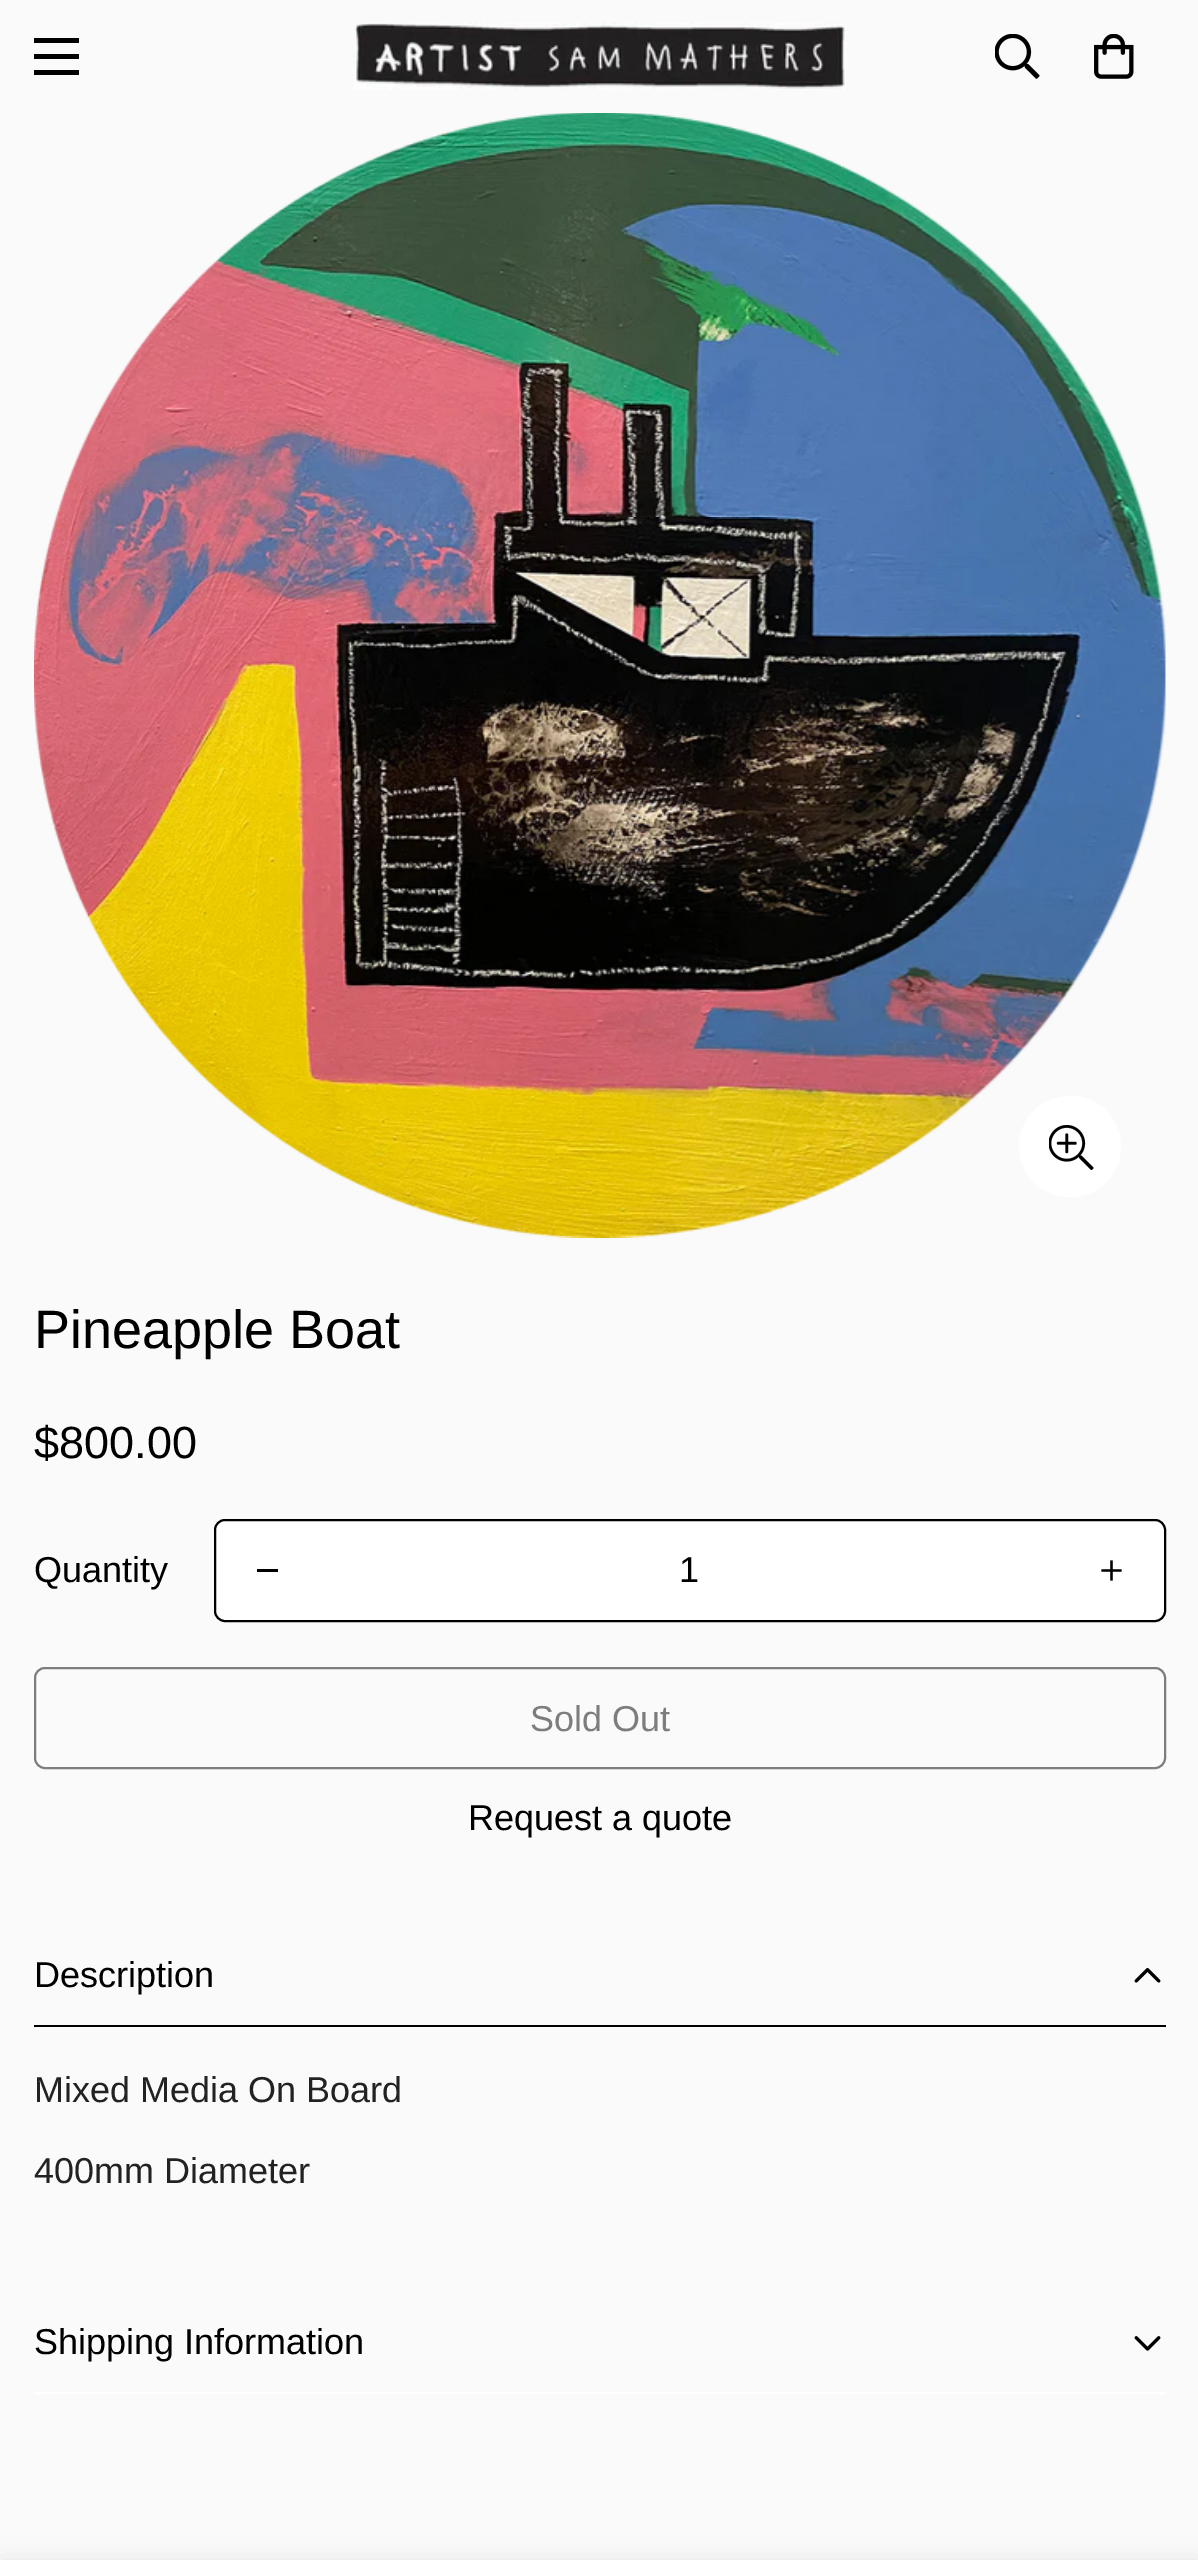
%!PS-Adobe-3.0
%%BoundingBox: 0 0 1198 2560
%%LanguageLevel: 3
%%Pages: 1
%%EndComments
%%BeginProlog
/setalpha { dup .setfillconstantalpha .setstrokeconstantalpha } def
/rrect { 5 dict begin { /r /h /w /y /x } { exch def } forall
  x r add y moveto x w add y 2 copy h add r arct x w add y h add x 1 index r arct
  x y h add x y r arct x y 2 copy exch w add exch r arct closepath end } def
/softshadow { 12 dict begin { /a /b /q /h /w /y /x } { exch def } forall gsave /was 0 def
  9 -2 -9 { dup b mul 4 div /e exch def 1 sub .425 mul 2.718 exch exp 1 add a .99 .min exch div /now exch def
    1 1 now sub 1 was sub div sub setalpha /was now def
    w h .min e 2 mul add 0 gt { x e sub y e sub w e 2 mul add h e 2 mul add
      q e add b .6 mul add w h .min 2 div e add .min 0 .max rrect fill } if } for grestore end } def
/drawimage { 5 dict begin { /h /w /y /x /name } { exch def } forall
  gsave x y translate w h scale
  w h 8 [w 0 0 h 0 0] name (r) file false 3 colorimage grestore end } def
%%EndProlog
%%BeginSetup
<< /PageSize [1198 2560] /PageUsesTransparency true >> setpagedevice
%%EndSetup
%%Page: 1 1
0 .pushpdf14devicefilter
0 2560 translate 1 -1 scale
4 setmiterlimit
0.98 setgray
0 0 1198 2560 rectfill
0 setgray
34 54 45 5 rectfill
34 38 45 5 rectfill
34 70 45 5 rectfill
(images/1.raw) 353 22 493 68 drawimage
(images/2.raw) 995 34 45 45 drawimage
(images/3.raw) 1094 34 40 45 drawimage
(images/4.raw) 34 113 1132 1125 drawimage
1 setgray
1019 1096 102 101 50.5 rrect fill
(images/5.raw) 1049 1125 45 45 drawimage
215 1520 950 101 10 rrect gsave fill grestore
0 setgray
2 setlinewidth
stroke
257 1569 21 3 rectfill
(images/6.raw) 1101 1560 21 21 drawimage
0.49 setgray
35 1668 1130 100 10 rrect stroke
0 setgray
34 2025 1132 2 rectfill
(images/7.raw) 1134 1968 27 15 drawimage
1 setgray
34 2392 1132 2 rectfill
(images/8.raw) 1134 2336 27 15 drawimage
0 setgray
0 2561 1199 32 0 11 0.09 softshadow
/LiberationSans-Regular [54 0 0 -54 0 0] selectfont
34 1348 moveto (Pineapple Boat) show
/LiberationSans-Regular [45 0 0 -45 0 0] selectfont
34 1458 moveto ($800.00) show
/LiberationSans-Regular [36 0 0 -36 0 0] selectfont
34 1582 moveto (Quantity) show
679 1582 moveto (1) show
0.49 setgray
530 1731 moveto (Sold Out) show
0 setgray
468 1830 moveto (Request a quote) show
34 1987 moveto (Description) show
0.133 setgray
34 2102 moveto (Mixed Media On Board) show
34 2183 moveto (400mm Diameter) show
0 setgray
34 2354 moveto (Shipping Information) show
.poppdf14devicefilter showpage
%%EOF
